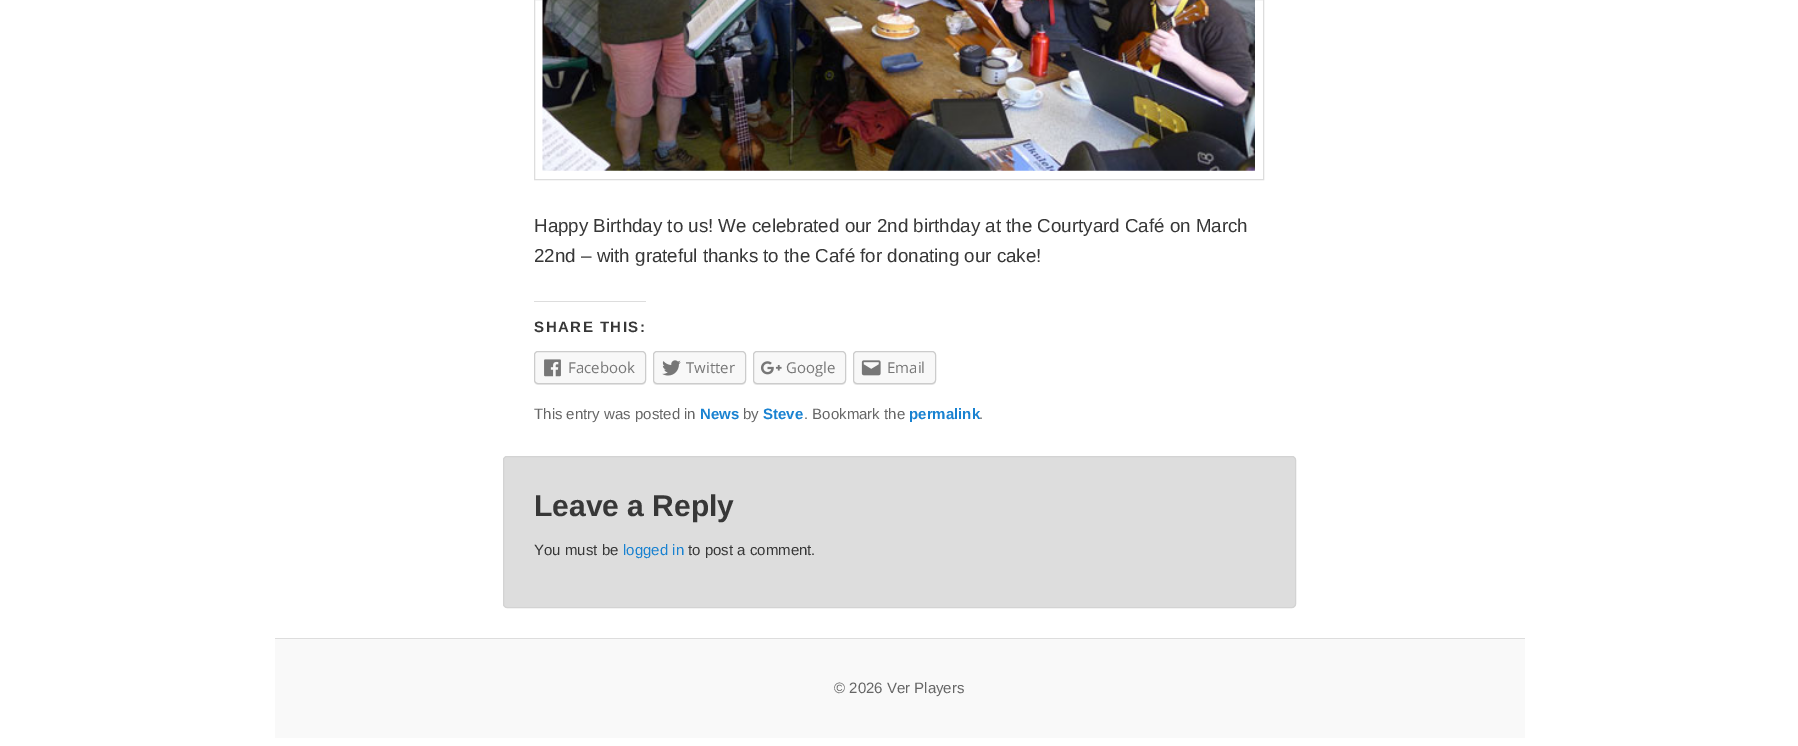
%!PS-Adobe-3.0
%%BoundingBox: 0 0 1798 746
%%LanguageLevel: 3
%%Pages: 1
%%EndComments
%%BeginProlog
/rrect { 5 dict begin { /r /h /w /y /x } { exch def } forall
  x r add y moveto x w add y 2 copy h add r arct x w add y h add x 1 index r arct
  x y h add x y r arct x y 2 copy exch w add exch r arct closepath end } def
/drawimage { 5 dict begin { /h /w /y /x /name } { exch def } forall
  gsave x y translate w h scale
  w h 8 [w 0 0 h 0 0] name (r) file false 3 colorimage grestore end } def
%%EndProlog
%%BeginSetup
<< /PageSize [1798 746] >> setpagedevice
%%EndSetup
%%Page: 1 1
0 746 translate 1 -1 scale
4 setmiterlimit
1 setgray
0 0 1798 746 rectfill
0.867 setgray
534.5 -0.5 729 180 rectstroke
(images/1.raw) 542 0 713 171 drawimage
534 301 112 1 rectfill
0.922 setgray
newpath 534 381 moveto 534 383 536 385 538 385 curveto 642 385 lineto 644 385 646 383 646 381 curveto 645 383 644 384 642 384 curveto 538 384 lineto 536 384 535 383 534 381 curveto closepath fill
0.973 setgray
534.5 351.5 111 32 3.5 rrect gsave fill grestore
0.8 setgray
stroke
(images/2.raw) 544 359 17 18 drawimage
0.922 setgray
newpath 653 382 moveto 654 384 655 385 657 385 curveto 742 385 lineto 744 385 746 383 746 381 curveto 745 383 744 384 743 384 curveto 656 384 lineto closepath fill
0.973 setgray
653.5 351.5 92 32 3.5 rrect gsave fill grestore
0.8 setgray
stroke
(images/3.raw) 662 360 19 16 drawimage
0.922 setgray
newpath 753 382 moveto 754 384 755 385 757 385 curveto 842 385 lineto 844 385 846 383 846 381 curveto 845 383 844 384 843 384 curveto 756 384 lineto closepath fill
0.973 setgray
753.5 351.5 92 32 3.5 rrect gsave fill grestore
0.8 setgray
stroke
(images/4.raw) 760 361 22 14 drawimage
0.922 setgray
newpath 853 382 moveto 854 384 855 385 857 385 curveto 932 385 lineto 934 385 936 383 936 381 curveto 935 382 lineto 933 384 lineto 855 383 lineto closepath fill
0.973 setgray
853.5 351.5 82 32 3.5 rrect gsave fill grestore
0.8 setgray
stroke
(images/5.raw) 861 360 20 16 drawimage
0.867 setgray
503.5 456.5 792 151 3.5 rrect gsave fill grestore
0.827 setgray
stroke
0.976 setgray
275 639 1250 99 rectfill
0.867 setgray
275 638 1250 1 rectfill
/LiberationSans-Regular [18.75 0 0 -18.75 0 0] selectfont
0.216 setgray
534 232 moveto (Happy Birthday to us! We celebrated our 2nd birthday at the Courtyard Café on March) show
534 262 moveto (22nd – with grateful thanks to the Café for donating our cake!) show
/LiberationSans-Bold [15 0 0 -15 0 0] selectfont
534 332 moveto 1.5 0 (SHARE THIS:) ashow
/OpenSans-Regular [15 0 0 -15 0 0] selectfont
0.467 setgray
568 373 moveto (Facebook) show
686 373 moveto (Twitter) show
786 373 moveto (Google) show
887 373 moveto (Email) show
/LiberationSans-Regular [15 0 0 -15 0 0] selectfont
0.4 setgray
534 419 moveto (This entry was posted in) show
/LiberationSans-Bold [15 0 0 -15 0 0] selectfont
0.098 0.51 0.82 setrgbcolor
700 419 moveto (News) show
/LiberationSans-Regular [15 0 0 -15 0 0] selectfont
0.4 setgray
743 419 moveto (by) show
/LiberationSans-Bold [15 0 0 -15 0 0] selectfont
0.098 0.51 0.82 setrgbcolor
763 419 moveto (Steve) show
/LiberationSans-Regular [15 0 0 -15 0 0] selectfont
0.4 setgray
804 419 moveto (. Bookmark the) show
/LiberationSans-Bold [15 0 0 -15 0 0] selectfont
0.098 0.51 0.82 setrgbcolor
909 419 moveto (permalink) show
/LiberationSans-Regular [15 0 0 -15 0 0] selectfont
0.4 setgray
979 419 moveto (.) show
/LiberationSans-Bold [30 0 0 -30 0 0] selectfont
0.216 setgray
534 516 moveto (Leave a Reply) show
/LiberationSans-Regular [15 0 0 -15 0 0] selectfont
534 555 moveto (You must be) show
0.098 0.51 0.82 setrgbcolor
623 555 moveto (logged in) show
0.216 setgray
688 555 moveto (to post a comment.) show
0.4 setgray
834 693 moveto (© 2026 Ver Players) show
showpage
%%EOF
